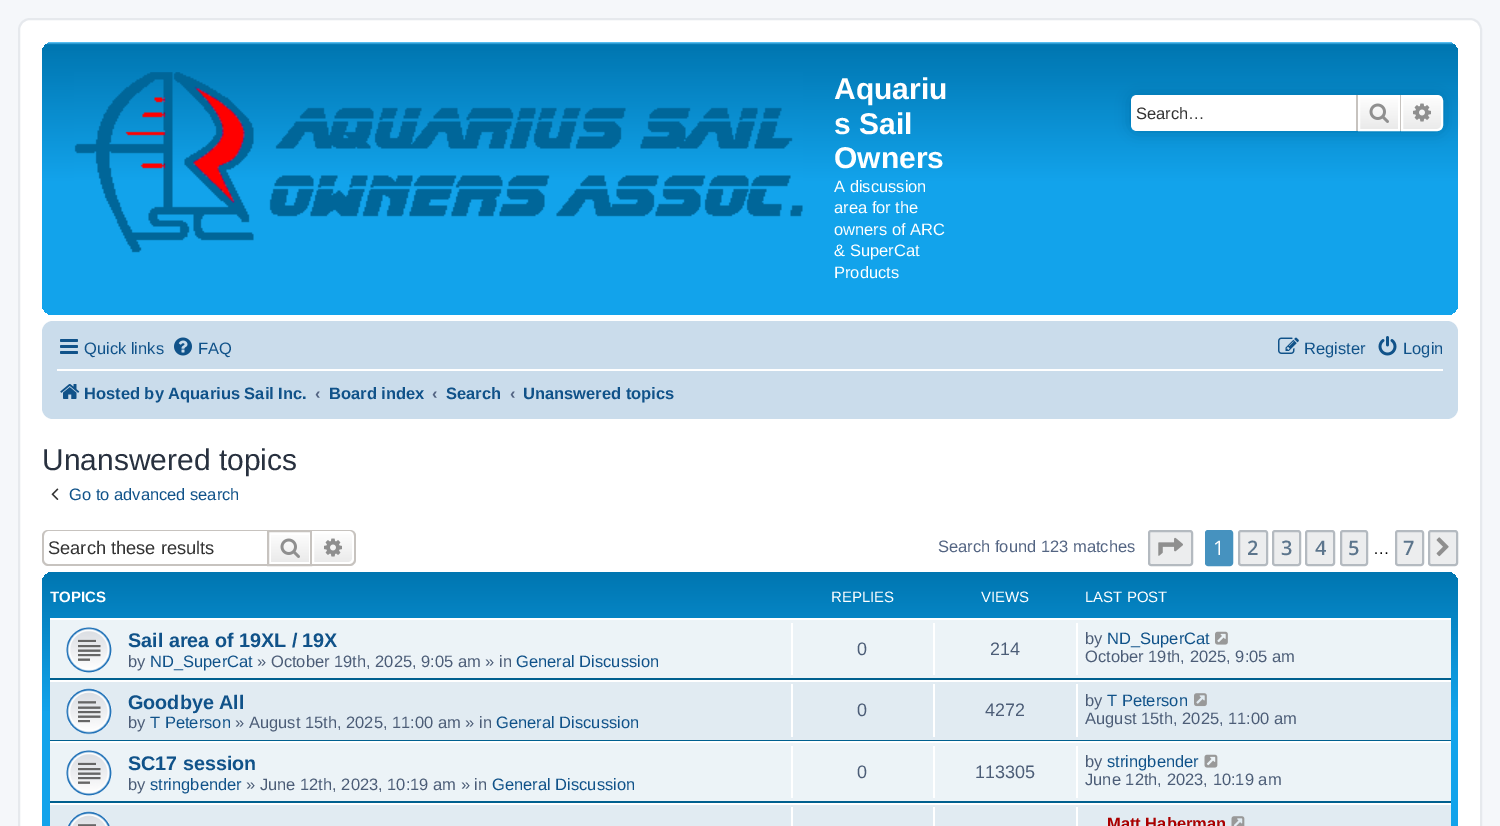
%!PS-Adobe-3.0
%%BoundingBox: 0 0 1500 826
%%LanguageLevel: 3
%%Pages: 1
%%EndComments
%%BeginProlog
/setalpha { dup .setfillconstantalpha .setstrokeconstantalpha } def
/rrect { 5 dict begin { /r /h /w /y /x } { exch def } forall
  x r add y moveto x w add y 2 copy h add r arct x w add y h add x 1 index r arct
  x y h add x y r arct x y 2 copy exch w add exch r arct closepath end } def
/softshadow { 12 dict begin { /a /b /q /h /w /y /x } { exch def } forall gsave /was 0 def
  9 -2 -9 { dup b mul 4 div /e exch def 1 sub .425 mul 2.718 exch exp 1 add a .99 .min exch div /now exch def
    1 1 now sub 1 was sub div sub setalpha /was now def
    w h .min e 2 mul add 0 gt { x e sub y e sub w e 2 mul add h e 2 mul add
      q e add b .6 mul add w h .min 2 div e add .min 0 .max rrect fill } if } for grestore end } def
/drawimage { 5 dict begin { /h /w /y /x /name } { exch def } forall
  gsave x y translate w h scale
  w h 8 [w 0 0 h 0 0] name (r) file false 3 colorimage grestore end } def
%%EndProlog
%%BeginSetup
<< /PageSize [1500 826] /PageUsesTransparency true >> setpagedevice
%%EndSetup
%%Page: 1 1
0 .pushpdf14devicefilter
0 826 translate 1 -1 scale
4 setmiterlimit
0.961 0.969 0.98 setrgbcolor
0 0 1500 826 rectfill
1 setgray
19 19 1462 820 11 rrect gsave fill grestore
0.902 0.914 0.929 setrgbcolor
2 setlinewidth
stroke
gsave 42 42 1416 273 11 rrect clip newpath
<< /ShadingType 2 /ColorSpace /DeviceRGB /Coords [750 42 750 315] /Extend [true true] /Function << /FunctionType 3 /Domain [0 1] /Functions [<< /FunctionType 2 /Domain [0 1] /C0 [0.416 0.808 1] /C1 [0 0.463 0.694] /N 1 >> << /FunctionType 2 /Domain [0 1] /C0 [0 0.463 0.694] /C1 [0.071 0.639 0.922] /N 1 >> << /FunctionType 2 /Domain [0 1] /C0 [0.071 0.639 0.922] /C1 [0.071 0.639 0.922] /N 1 >>] /Bounds [0.01 0.51] /Encode [0 1 0 1 0 1] >> >> shfill grestore
(images/1.raw) 74 72 729 181 drawimage
0 0.459 0.69 setrgbcolor
1131 95 312 36 6 7.5 1 softshadow
1 setgray
newpath 1137 95 moveto 1356 95 lineto 1356 131 lineto 1137 131 lineto 1133.5 131 1131 128.5 1131 125 curveto 1131 101 lineto 1131 97.5 1133.5 95 1137 95 curveto closepath fill
gsave newpath 1360 97 moveto 1398 97 lineto 1398 129 lineto 1360 129 lineto closepath clip newpath
<< /ShadingType 2 /ColorSpace /DeviceRGB /Coords [1379 95 1379 131] /Extend [true true] /Function << /FunctionType 2 /Domain [0 1] /C0 [1 1 1] /C1 [0.914 0.914 0.914] /N 1 >> >> shfill grestore
1359 96 40 34 rectstroke
0.78 0.765 0.749 setrgbcolor
1400 95 1 36 rectfill
1356 95 2 36 rectfill
(images/2.raw) 1369 103 20 20 drawimage
gsave newpath 1402 96 moveto 1437 96 lineto 1440 96 1442 98 1442 101 curveto 1442 125 lineto 1442 128 1440 130 1437 130 curveto 1402 130 lineto closepath clip newpath
<< /ShadingType 2 /ColorSpace /DeviceRGB /Coords [1422 95 1422 131] /Extend [true true] /Function << /FunctionType 2 /Domain [0 1] /C0 [1 1 1] /C1 [0.914 0.914 0.914] /N 1 >> >> shfill grestore
1 setgray
newpath 1402 96 moveto 1437 96 lineto 1440 96 1442 98 1442 101 curveto 1442 125 lineto 1442 128 1440 130 1437 130 curveto 1402 130 lineto closepath stroke
(images/3.raw) 1413 103 18 19 drawimage
0.792 0.863 0.922 setrgbcolor
42 321 1416 98 11 rrect fill
(images/4.raw) 60 339 18 15 drawimage
(images/5.raw) 174 337 18 19 drawimage
(images/6.raw) 1278 337 21 17 drawimage
(images/7.raw) 1378 336 19 20 drawimage
1 setgray
57 369 1386 2 rectfill
(images/8.raw) 60 384 20 15 drawimage
(images/9.raw) 51 488 8 12 drawimage
0.78 0.765 0.749 setrgbcolor
newpath 48 530 moveto 267 530 lineto 267 566 lineto 48 566 lineto 45 566 42 563 42 560 curveto 42 536 lineto 42 532 45 530 48 530 curveto closepath 48 531 moveto 267 531 lineto 267 564 lineto 48 564 lineto 46 564 44 562 44 560 curveto 44 536 lineto 44 533 46 531 48 531 curveto closepath eofill
gsave newpath 271 535 moveto 309 535 lineto 309 562 lineto 271 562 lineto closepath clip newpath
<< /ShadingType 2 /ColorSpace /DeviceRGB /Coords [290 531 290 564] /Extend [true true] /Function << /FunctionType 2 /Domain [0 1] /C0 [1 1 1] /C1 [0.914 0.914 0.914] /N 1 >> >> shfill grestore
268 531 43 34 rectstroke
(images/10.raw) 280 538 20 20 drawimage
gsave newpath 313 532 moveto 349 532 lineto 351 532 353 534 353 536 curveto 353 559 lineto 353 561 351 563 349 563 curveto 313 563 lineto closepath clip newpath
<< /ShadingType 2 /ColorSpace /DeviceRGB /Coords [333 531 333 564] /Extend [true true] /Function << /FunctionType 2 /Domain [0 1] /C0 [1 1 1] /C1 [0.914 0.914 0.914] /N 1 >> >> shfill grestore
1 setgray
newpath 313 532 moveto 349 532 lineto 351 532 353 534 353 536 curveto 353 559 lineto 353 561 351 563 349 563 curveto 313 563 lineto closepath stroke
0.78 0.765 0.749 setrgbcolor
newpath 312 530 moveto 350 530 lineto 353 530 356 532 356 536 curveto 356 560 lineto 356 563 353 566 350 566 curveto 312 566 lineto closepath 312 531 moveto 350 531 lineto 352 531 354 533 354 536 curveto 354 560 lineto 354 562 352 564 350 564 curveto 312 564 lineto closepath eofill
(images/11.raw) 324 538 18 19 drawimage
0.925 0.929 0.933 setrgbcolor
1149 531 43 34 2 rrect gsave fill grestore
0.706 0.729 0.753 setrgbcolor
stroke
(images/12.raw) 1158 537 25 19 drawimage
0.275 0.573 0.749 setrgbcolor
1206 531 26 34 2 rrect gsave fill grestore
stroke
0.925 0.929 0.933 setrgbcolor
1239 531 28 34 2 rrect gsave fill grestore
0.706 0.729 0.753 setrgbcolor
stroke
0.925 0.929 0.933 setrgbcolor
1273 531 27 34 2 rrect gsave fill grestore
0.706 0.729 0.753 setrgbcolor
stroke
0.925 0.929 0.933 setrgbcolor
1306 531 28 34 2 rrect gsave fill grestore
0.706 0.729 0.753 setrgbcolor
stroke
0.925 0.929 0.933 setrgbcolor
1341 531 26 34 2 rrect gsave fill grestore
0.706 0.729 0.753 setrgbcolor
stroke
0.925 0.929 0.933 setrgbcolor
1396 531 27 34 2 rrect gsave fill grestore
0.706 0.729 0.753 setrgbcolor
stroke
0.925 0.929 0.933 setrgbcolor
1429 531 28 34 2 rrect gsave fill grestore
0.706 0.729 0.753 setrgbcolor
stroke
(images/13.raw) 1436 537 13 20 drawimage
gsave 42 572 1416 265 11 rrect clip newpath
<< /ShadingType 2 /ColorSpace /DeviceRGB /Coords [750 571 750 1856] /Extend [true true] /Function << /FunctionType 3 /Domain [0 1] /Functions [<< /FunctionType 2 /Domain [0 1] /C0 [0 0.463 0.694] /C1 [0.071 0.639 0.922] /N 1 >> << /FunctionType 2 /Domain [0 1] /C0 [0.071 0.639 0.922] /C1 [0.071 0.639 0.922] /N 1 >>] /Bounds [0.11] /Encode [0 1 0 1] >> >> shfill grestore
0.925 0.953 0.969 setrgbcolor
50 620 1401 58 rectfill
1 setgray
50 618 1401 2 rectfill
0 0.376 0.561 setrgbcolor
50 678 1401 2 rectfill
(images/14.raw) 66 627 46 46 drawimage
1 setgray
791 623 2 52 rectfill
933 623 2 52 rectfill
1076 623 2 52 rectfill
(images/15.raw) 1215 631 13 14 drawimage
0.882 0.922 0.949 setrgbcolor
50 682 1401 58 rectfill
1 setgray
50 680 1401 2 rectfill
0 0.376 0.561 setrgbcolor
50 740 1401 1 rectfill
(images/16.raw) 66 688 46 47 drawimage
1 setgray
791 684 2 53 rectfill
933 684 2 53 rectfill
1076 684 2 53 rectfill
(images/17.raw) 1194 693 13 14 drawimage
0.925 0.953 0.969 setrgbcolor
50 743 1401 58 rectfill
1 setgray
50 741 1401 2 rectfill
0 0.376 0.561 setrgbcolor
50 801 1401 2 rectfill
(images/14.raw) 66 750 46 46 drawimage
1 setgray
791 746 2 52 rectfill
933 746 2 52 rectfill
1076 746 2 52 rectfill
(images/18.raw) 1204 754 14 14 drawimage
0.882 0.922 0.949 setrgbcolor
50 805 1401 21 rectfill
1 setgray
50 803 1401 2 rectfill
(images/19.raw) 67 811 43 15 drawimage
791 807 2 19 rectfill
933 807 2 19 rectfill
1076 807 2 19 rectfill
(images/20.raw) 1231 816 14 10 drawimage
/LiberationSans-Bold [30 0 0 -30 0 0] selectfont
834 99 moveto (Aquariu) show
834 134 moveto (s Sail) show
834 168 moveto (Owners) show
/LiberationSans-Regular [16.5 0 0 -16.5 0 0] selectfont
834 192 moveto (A discussion) show
834 213 moveto (area for the) show
834 235 moveto (owners of ARC) show
834 256 moveto (& SuperCat) show
834 278 moveto (Products) show
0.2 setgray
1136 119 moveto (Search…) show
0.063 0.322 0.537 setrgbcolor
84 354 moveto (Quick links) show
198 354 moveto (FAQ) show
1304 354 moveto (Register) show
1403 354 moveto (Login) show
/LiberationSans-Bold [16.5 0 0 -16.5 0 0] selectfont
84 399 moveto (Hosted by Aquarius Sail Inc.) show
0.325 0.392 0.51 setrgbcolor
315 399 moveto (‹) show
0.063 0.322 0.537 setrgbcolor
329 399 moveto (Board index) show
0.325 0.392 0.51 setrgbcolor
432 399 moveto (‹) show
0.063 0.322 0.537 setrgbcolor
446 399 moveto (Search) show
0.325 0.392 0.51 setrgbcolor
510 399 moveto (‹) show
0.063 0.322 0.537 setrgbcolor
523 399 moveto (Unanswered topics) show
/LiberationSans-Regular [30 0 0 -30 0 0] selectfont
0.157 0.192 0.247 setrgbcolor
42 470 moveto (Unanswered topics) show
/LiberationSans-Regular [16.5 0 0 -16.5 0 0] selectfont
0.063 0.322 0.537 setrgbcolor
69 500 moveto (Go to advanced search) show
/LiberationSans-Regular [18.25 0 0 -18.25 0 0] selectfont
0.2 setgray
48 554 moveto (Search these results) show
/LiberationSans-Regular [16.5 0 0 -16.5 0 0] selectfont
0.325 0.392 0.51 setrgbcolor
938 552 moveto (Search found 123 matches) show
/OpenSans-Regular [20 0 0 -20 0 0] selectfont
1 setgray
1213 555 moveto (1) show
/OpenSans-SemiBold [20 0 0 -20 0 0] selectfont
0.361 0.459 0.549 setrgbcolor
1247 555 moveto (2) show
1281 555 moveto (3) show
1315 555 moveto (4) show
1348 555 moveto (5) show
/LiberationSans-Regular [16.5 0 0 -16.5 0 0] selectfont
0 setgray
1373 554 moveto (…) show
/OpenSans-SemiBold [20 0 0 -20 0 0] selectfont
0.361 0.459 0.549 setrgbcolor
1403 555 moveto (7) show
gsave
50 579 1401 39 rectclip
/LiberationSans-Bold [15 0 0 -15 0 0] selectfont
1 setgray
50 602 moveto (TOPICS) show
grestore
/LiberationSans-Regular [15 0 0 -15 0 0] selectfont
1 setgray
831 602 moveto (REPLIES) show
981 602 moveto (VIEWS) show
1085 602 moveto (LAST POST) show
/LiberationSans-Bold [19.75 0 0 -19.75 0 0] selectfont
0.063 0.322 0.537 setrgbcolor
128 647 moveto (Sail area of 19XL / 19X) show
/LiberationSans-Regular [16.5 0 0 -16.5 0 0] selectfont
0.298 0.365 0.467 setrgbcolor
128 667 moveto (by) show
0.063 0.322 0.537 setrgbcolor
150 667 moveto (ND_SuperCat) show
0.298 0.365 0.467 setrgbcolor
257 667 moveto (» October 19th, 2025, 9:05 am » in) show
0.063 0.322 0.537 setrgbcolor
516 667 moveto (General Discussion) show
/LiberationSans-Regular [18 0 0 -18 0 0] selectfont
0.298 0.365 0.467 setrgbcolor
857 655 moveto (0) show
990 655 moveto (214) show
/LiberationSans-Regular [16.5 0 0 -16.5 0 0] selectfont
1085 644 moveto (by) show
0.063 0.322 0.537 setrgbcolor
1107 644 moveto (ND_SuperCat) show
0.298 0.365 0.467 setrgbcolor
1085 662 moveto (October 19th, 2025, 9:05 am) show
/LiberationSans-Bold [19.75 0 0 -19.75 0 0] selectfont
0.063 0.322 0.537 setrgbcolor
128 709 moveto (Goodbye All) show
/LiberationSans-Regular [16.5 0 0 -16.5 0 0] selectfont
0.298 0.365 0.467 setrgbcolor
128 728 moveto (by) show
0.063 0.322 0.537 setrgbcolor
150 728 moveto (T Peterson) show
0.298 0.365 0.467 setrgbcolor
235 728 moveto (» August 15th, 2025, 11:00 am » in) show
0.063 0.322 0.537 setrgbcolor
496 728 moveto (General Discussion) show
/LiberationSans-Regular [18 0 0 -18 0 0] selectfont
0.298 0.365 0.467 setrgbcolor
857 716 moveto (0) show
985 716 moveto (4272) show
/LiberationSans-Regular [16.5 0 0 -16.5 0 0] selectfont
1085 706 moveto (by) show
0.063 0.322 0.537 setrgbcolor
1107 706 moveto (T Peterson) show
0.298 0.365 0.467 setrgbcolor
1085 724 moveto (August 15th, 2025, 11:00 am) show
/LiberationSans-Bold [19.75 0 0 -19.75 0 0] selectfont
0.063 0.322 0.537 setrgbcolor
128 770 moveto (SC17 session) show
/LiberationSans-Regular [16.5 0 0 -16.5 0 0] selectfont
0.298 0.365 0.467 setrgbcolor
128 790 moveto (by) show
0.063 0.322 0.537 setrgbcolor
150 790 moveto (stringbender) show
0.298 0.365 0.467 setrgbcolor
246 790 moveto (» June 12th, 2023, 10:19 am » in) show
0.063 0.322 0.537 setrgbcolor
492 790 moveto (General Discussion) show
/LiberationSans-Regular [18 0 0 -18 0 0] selectfont
0.298 0.365 0.467 setrgbcolor
857 778 moveto (0) show
975 778 moveto (113305) show
/LiberationSans-Regular [16.5 0 0 -16.5 0 0] selectfont
1085 767 moveto (by) show
0.063 0.322 0.537 setrgbcolor
1107 767 moveto (stringbender) show
0.298 0.365 0.467 setrgbcolor
1085 785 moveto (June 12th, 2023, 10:19 am) show
/LiberationSans-Bold [16.5 0 0 -16.5 0 0] selectfont
0.667 0 0 setrgbcolor
1107 829 moveto (Matt Haberman) show
.poppdf14devicefilter showpage
%%EOF
